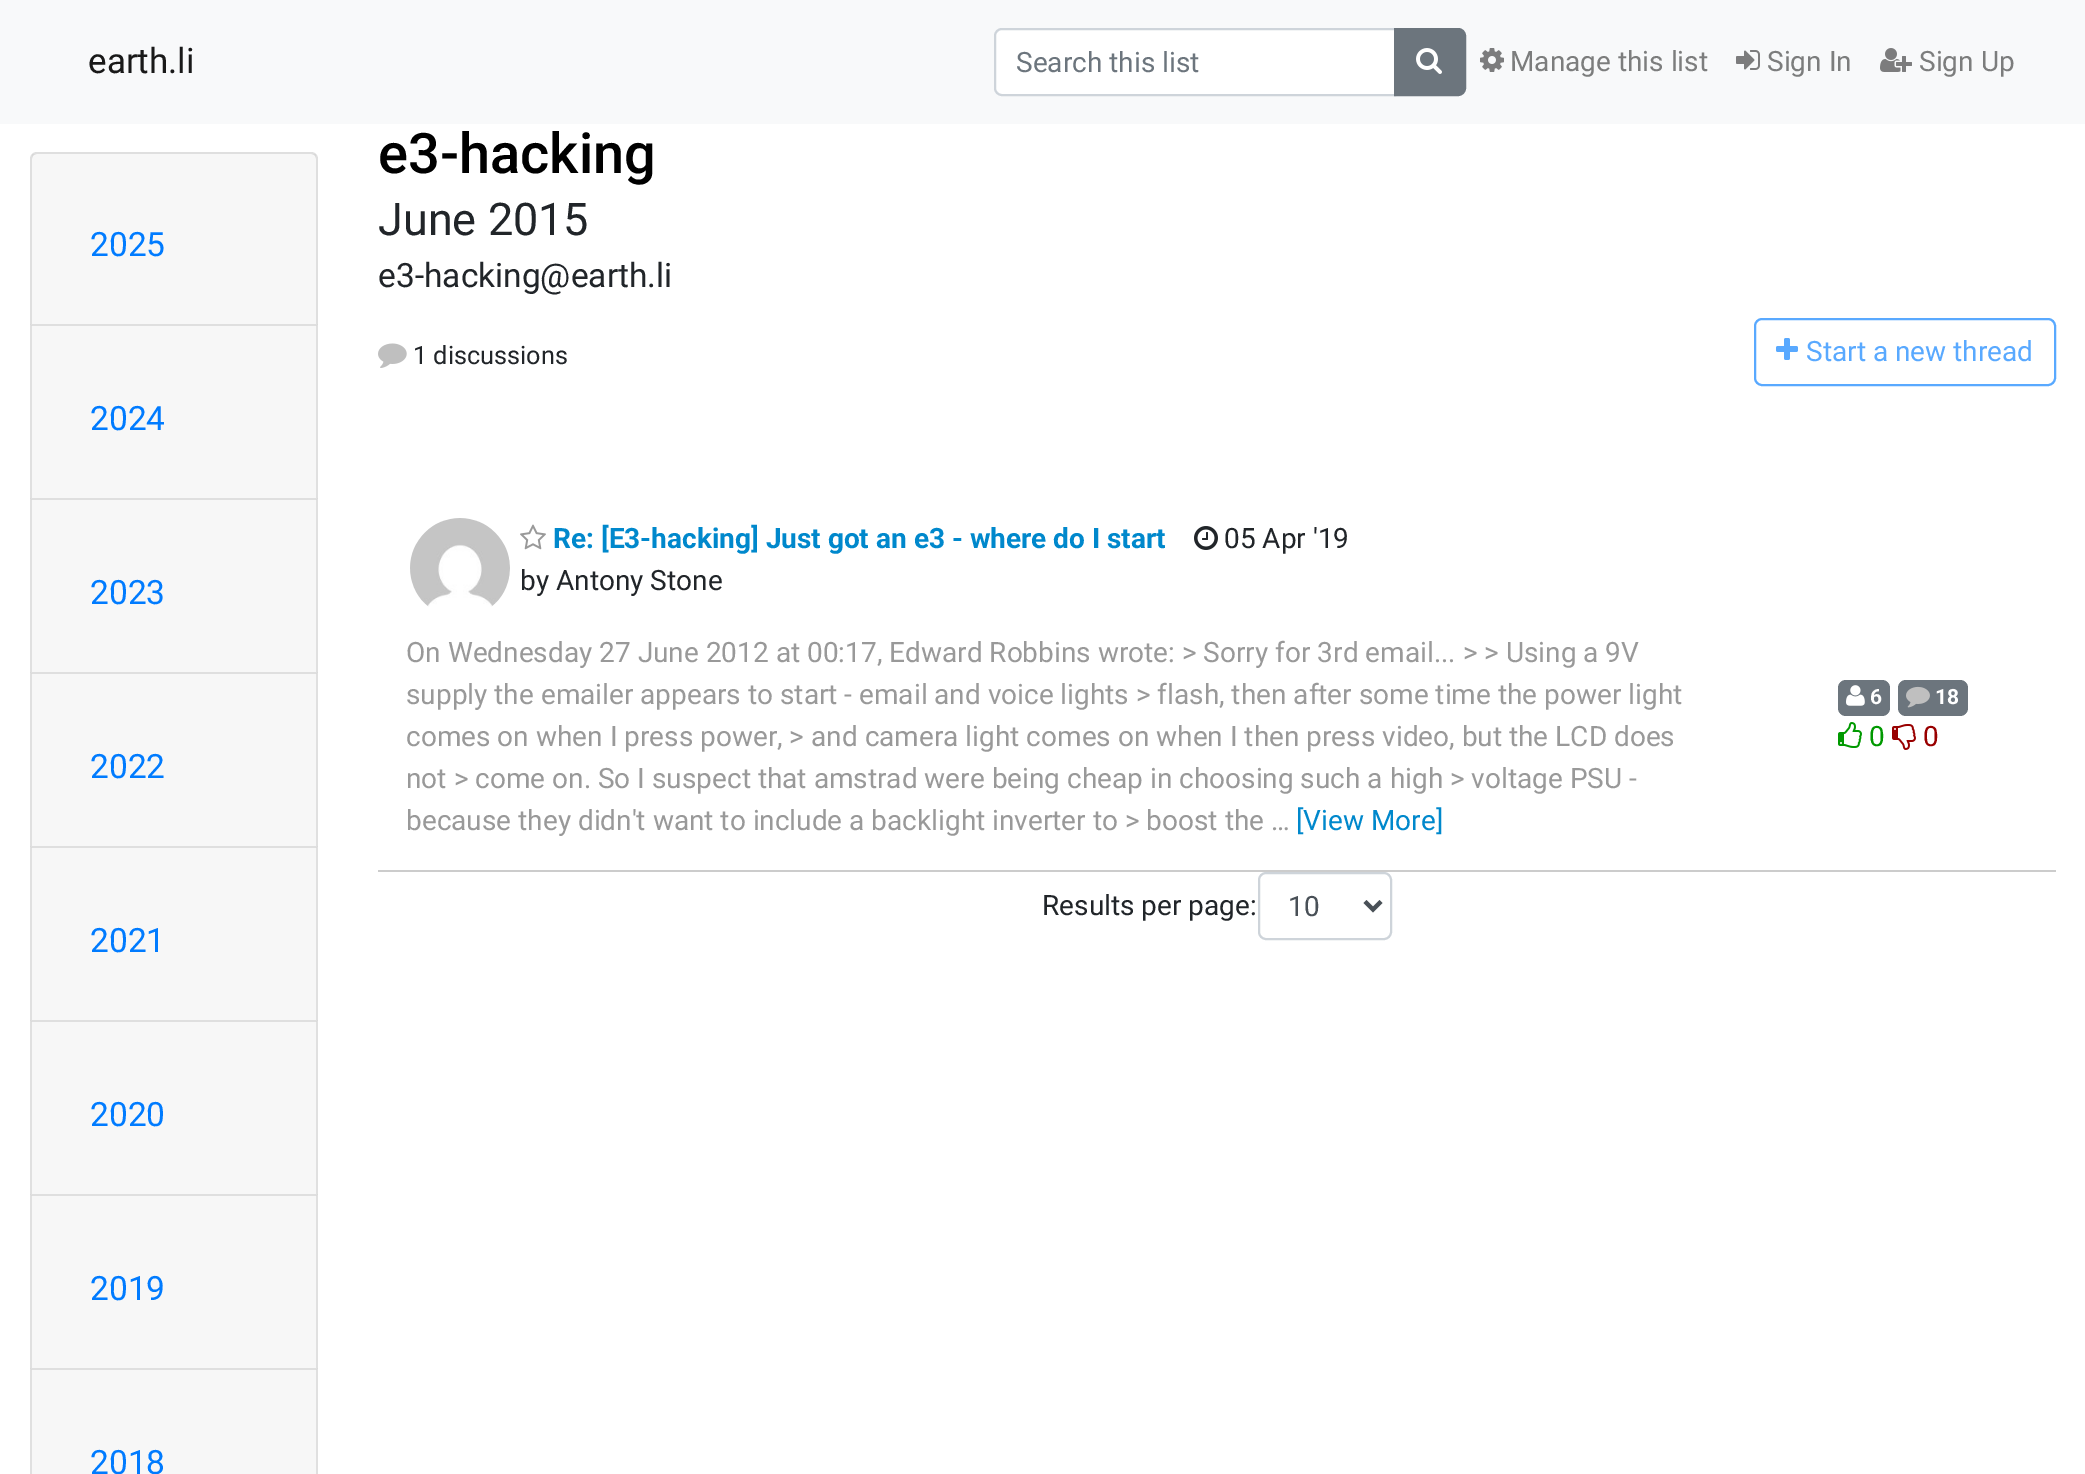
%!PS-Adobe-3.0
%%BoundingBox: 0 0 2085 1474
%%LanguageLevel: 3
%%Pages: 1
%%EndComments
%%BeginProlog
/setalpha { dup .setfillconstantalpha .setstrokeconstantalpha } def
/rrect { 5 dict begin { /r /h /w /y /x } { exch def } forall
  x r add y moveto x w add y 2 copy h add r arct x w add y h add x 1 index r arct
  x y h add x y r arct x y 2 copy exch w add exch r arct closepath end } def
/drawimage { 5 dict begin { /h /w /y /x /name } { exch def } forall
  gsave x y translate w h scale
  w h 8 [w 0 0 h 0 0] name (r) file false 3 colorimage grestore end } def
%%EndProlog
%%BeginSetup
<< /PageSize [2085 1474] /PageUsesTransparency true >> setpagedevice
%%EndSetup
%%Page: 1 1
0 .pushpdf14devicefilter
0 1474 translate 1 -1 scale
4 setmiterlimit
1 setgray
0 0 2085 1474 rectfill
0.973 0.976 0.98 setrgbcolor
0 0 2085 124 rectfill
1 setgray
newpath 1001 30 moveto 1394 30 lineto 1394 94 lineto 1001 94 lineto 998 94 996 92 996 89 curveto 996 35 lineto 996 32 998 30 1001 30 curveto closepath fill
0.808 0.831 0.855 setrgbcolor
2 setlinewidth
newpath 1002 29 moveto 1395 29 lineto 1395 95 lineto 1002 95 lineto 998 95 995 92 995 88 curveto 995 36 lineto 995 32 998 29 1002 29 curveto closepath stroke
0.424 0.459 0.49 setrgbcolor
newpath 1395 29 moveto 1458 29 lineto 1462 29 1465 32 1465 36 curveto 1465 88 lineto 1465 92 1462 95 1458 95 curveto 1395 95 lineto closepath gsave fill grestore
stroke
(images/1.raw) 1416 48 26 26 drawimage
(images/2.raw) 1480 48 24 24 drawimage
(images/3.raw) 1736 50 24 20 drawimage
(images/4.raw) 1880 48 32 24 drawimage
0.875 setgray
newpath 37 152 moveto 311 152 lineto 315 152 318 155 318 159 curveto 318 324 lineto 30 324 lineto 30 159 lineto 30 155 33 152 37 152 curveto closepath 37 154 moveto 311 154 lineto 314 154 316 156 316 159 curveto 316 324 lineto 32 324 lineto 32 159 lineto 32 156 34 154 37 154 curveto closepath eofill
0.03 setalpha
0 setgray
32 154 284 170 rectfill
1 setalpha
0.875 setgray
newpath 30 324 moveto 318 324 lineto 316 326 lineto 32 326 lineto closepath fill
0.12 setalpha
0 setgray
newpath 318 324 moveto 318 498 lineto 316 498 lineto 316 326 lineto closepath fill
newpath 30 498 moveto 30 324 lineto 32 326 lineto 32 498 lineto closepath fill
1 setalpha
0.969 setgray
32 326 284 172 rectfill
0.875 setgray
newpath 30 498 moveto 318 498 lineto 316 500 lineto 32 500 lineto closepath fill
0.12 setalpha
0 setgray
newpath 318 498 moveto 318 672 lineto 316 672 lineto 316 500 lineto closepath fill
newpath 30 672 moveto 30 498 lineto 32 500 lineto 32 672 lineto closepath fill
1 setalpha
0.969 setgray
32 500 284 172 rectfill
0.875 setgray
newpath 30 672 moveto 318 672 lineto 316 674 lineto 32 674 lineto closepath fill
0.12 setalpha
0 setgray
newpath 318 672 moveto 318 846 lineto 316 846 lineto 316 674 lineto closepath fill
newpath 30 846 moveto 30 672 lineto 32 674 lineto 32 846 lineto closepath fill
1 setalpha
0.969 setgray
32 674 284 172 rectfill
0.875 setgray
newpath 30 846 moveto 318 846 lineto 316 848 lineto 32 848 lineto closepath fill
0.12 setalpha
0 setgray
newpath 318 846 moveto 318 1020 lineto 316 1020 lineto 316 848 lineto closepath fill
newpath 30 1020 moveto 30 846 lineto 32 848 lineto 32 1020 lineto closepath fill
1 setalpha
0.969 setgray
32 848 284 172 rectfill
0.875 setgray
newpath 30 1020 moveto 318 1020 lineto 316 1022 lineto 32 1022 lineto closepath fill
0.12 setalpha
0 setgray
newpath 318 1020 moveto 318 1194 lineto 316 1194 lineto 316 1022 lineto closepath fill
newpath 30 1194 moveto 30 1020 lineto 32 1022 lineto 32 1194 lineto closepath fill
1 setalpha
0.969 setgray
32 1022 284 172 rectfill
0.875 setgray
newpath 30 1194 moveto 318 1194 lineto 316 1196 lineto 32 1196 lineto closepath fill
0.12 setalpha
0 setgray
newpath 318 1194 moveto 318 1368 lineto 316 1368 lineto 316 1196 lineto closepath fill
newpath 30 1368 moveto 30 1194 lineto 32 1196 lineto 32 1368 lineto closepath fill
1 setalpha
0.969 setgray
32 1196 284 172 rectfill
0.875 setgray
newpath 30 1368 moveto 318 1368 lineto 316 1370 lineto 32 1370 lineto closepath fill
0.12 setalpha
0 setgray
newpath 318 1368 moveto 318 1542 lineto 316 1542 lineto 316 1370 lineto closepath fill
newpath 30 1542 moveto 30 1368 lineto 32 1370 lineto 32 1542 lineto closepath fill
1 setalpha
0.969 setgray
32 1370 284 104 rectfill
(images/5.raw) 378 343 29 25 drawimage
0.349 0.663 1 setrgbcolor
1755 319 300 66 7 rrect stroke
(images/6.raw) 1776 338 22 22 drawimage
0.8 setgray
378 870 1678 2 rectfill
(images/7.raw) 410 518 100 89 drawimage
(images/8.raw) 520 524 26 26 drawimage
(images/9.raw) 1194 526 24 24 drawimage
0.424 0.459 0.49 setrgbcolor
1838 680 52 36 8 rrect fill
(images/10.raw) 1846 685 19 21 drawimage
1898 680 70 36 8 rrect fill
(images/11.raw) 1906 686 24 22 drawimage
(images/12.raw) 1838 722 24 26 drawimage
(images/13.raw) 1892 724 24 26 drawimage
0.808 0.831 0.855 setrgbcolor
1259 873 132 66 7 rrect stroke
0.286 0.314 0.341 setrgbcolor
4 setlinewidth
newpath 1365 901.5 moveto 1373 909.5 lineto 1381 901.5 lineto stroke
/Roboto-Regular [35 0 0 -35 0 0] selectfont
0.098 setgray
88 73 moveto (earth.li) show
/Roboto-Regular [28 0 0 -28 0 0] selectfont
0.424 0.459 0.49 setrgbcolor
1016 72 moveto (Search this list) show
0.486 0.49 0.49 setrgbcolor
1510 71 moveto (Manage this list) show
1767 71 moveto (Sign In) show
1919 71 moveto (Sign Up) show
/Roboto-Regular [33.5 0 0 -33.5 0 0] selectfont
0 0.482 1 setrgbcolor
90 256 moveto (2025) show
90 430 moveto (2024) show
90 604 moveto (2023) show
90 778 moveto (2022) show
90 952 moveto (2021) show
90 1126 moveto (2020) show
90 1300 moveto (2019) show
90 1474 moveto (2018) show
/Roboto-Medium [56 0 0 -56 0 0] selectfont
0 setgray
378 173 moveto (e3-hacking) show
/Roboto-Regular [45 0 0 -45 0 0] selectfont
0.129 0.145 0.161 setrgbcolor
378 235 moveto (June 2015) show
/Roboto-Regular [33.5 0 0 -33.5 0 0] selectfont
378 287 moveto (e3-hacking@earth.li) show
/Roboto-Regular [25.25 0 0 -25.25 0 0] selectfont
413 364 moveto (1 discussions) show
/Roboto-Regular [28 0 0 -28 0 0] selectfont
0.349 0.663 1 setrgbcolor
1806 361 moveto (Start a new thread) show
/Roboto-Bold [28 0 0 -28 0 0] selectfont
0 0.533 0.8 setrgbcolor
553 548 moveto (Re: [E3-hacking] Just got an e3 - where do I start) show
/Roboto-Regular [28 0 0 -28 0 0] selectfont
0.129 0.145 0.161 setrgbcolor
520 590 moveto (by Antony Stone) show
1224 548 moveto (05 Apr '19) show
0.6 setgray
406 662 moveto (On Wednesday 27 June 2012 at 00:17, Edward Robbins wrote: > Sorry for 3rd email... > > Using a 9V) show
406 704 moveto (supply the emailer appears to start - email and voice lights > flash, then after some time the power light) show
406 746 moveto (comes on when I press power, > and camera light comes on when I then press video, but the LCD does) show
406 788 moveto (not > come on. So I suspect that amstrad were being cheap in choosing such a high > voltage PSU -) show
406 830 moveto (because they didn't want to include a backlight inverter to > boost the …) show
0 0.533 0.8 setrgbcolor
1296 830 moveto ([View More]) show
/Roboto-Bold [21 0 0 -21 0 0] selectfont
1 setgray
1870 704 moveto (6) show
1935 704 moveto (18) show
/Roboto-Regular [28 0 0 -28 0 0] selectfont
0 0.6 0 setrgbcolor
1869 746 moveto (0) show
0.6 0 0 setrgbcolor
1923 746 moveto (0) show
0.129 0.145 0.161 setrgbcolor
1042 915 moveto (Results per page:) show
0.286 0.314 0.341 setrgbcolor
1288 916 moveto (10) show
.poppdf14devicefilter showpage
%%EOF
